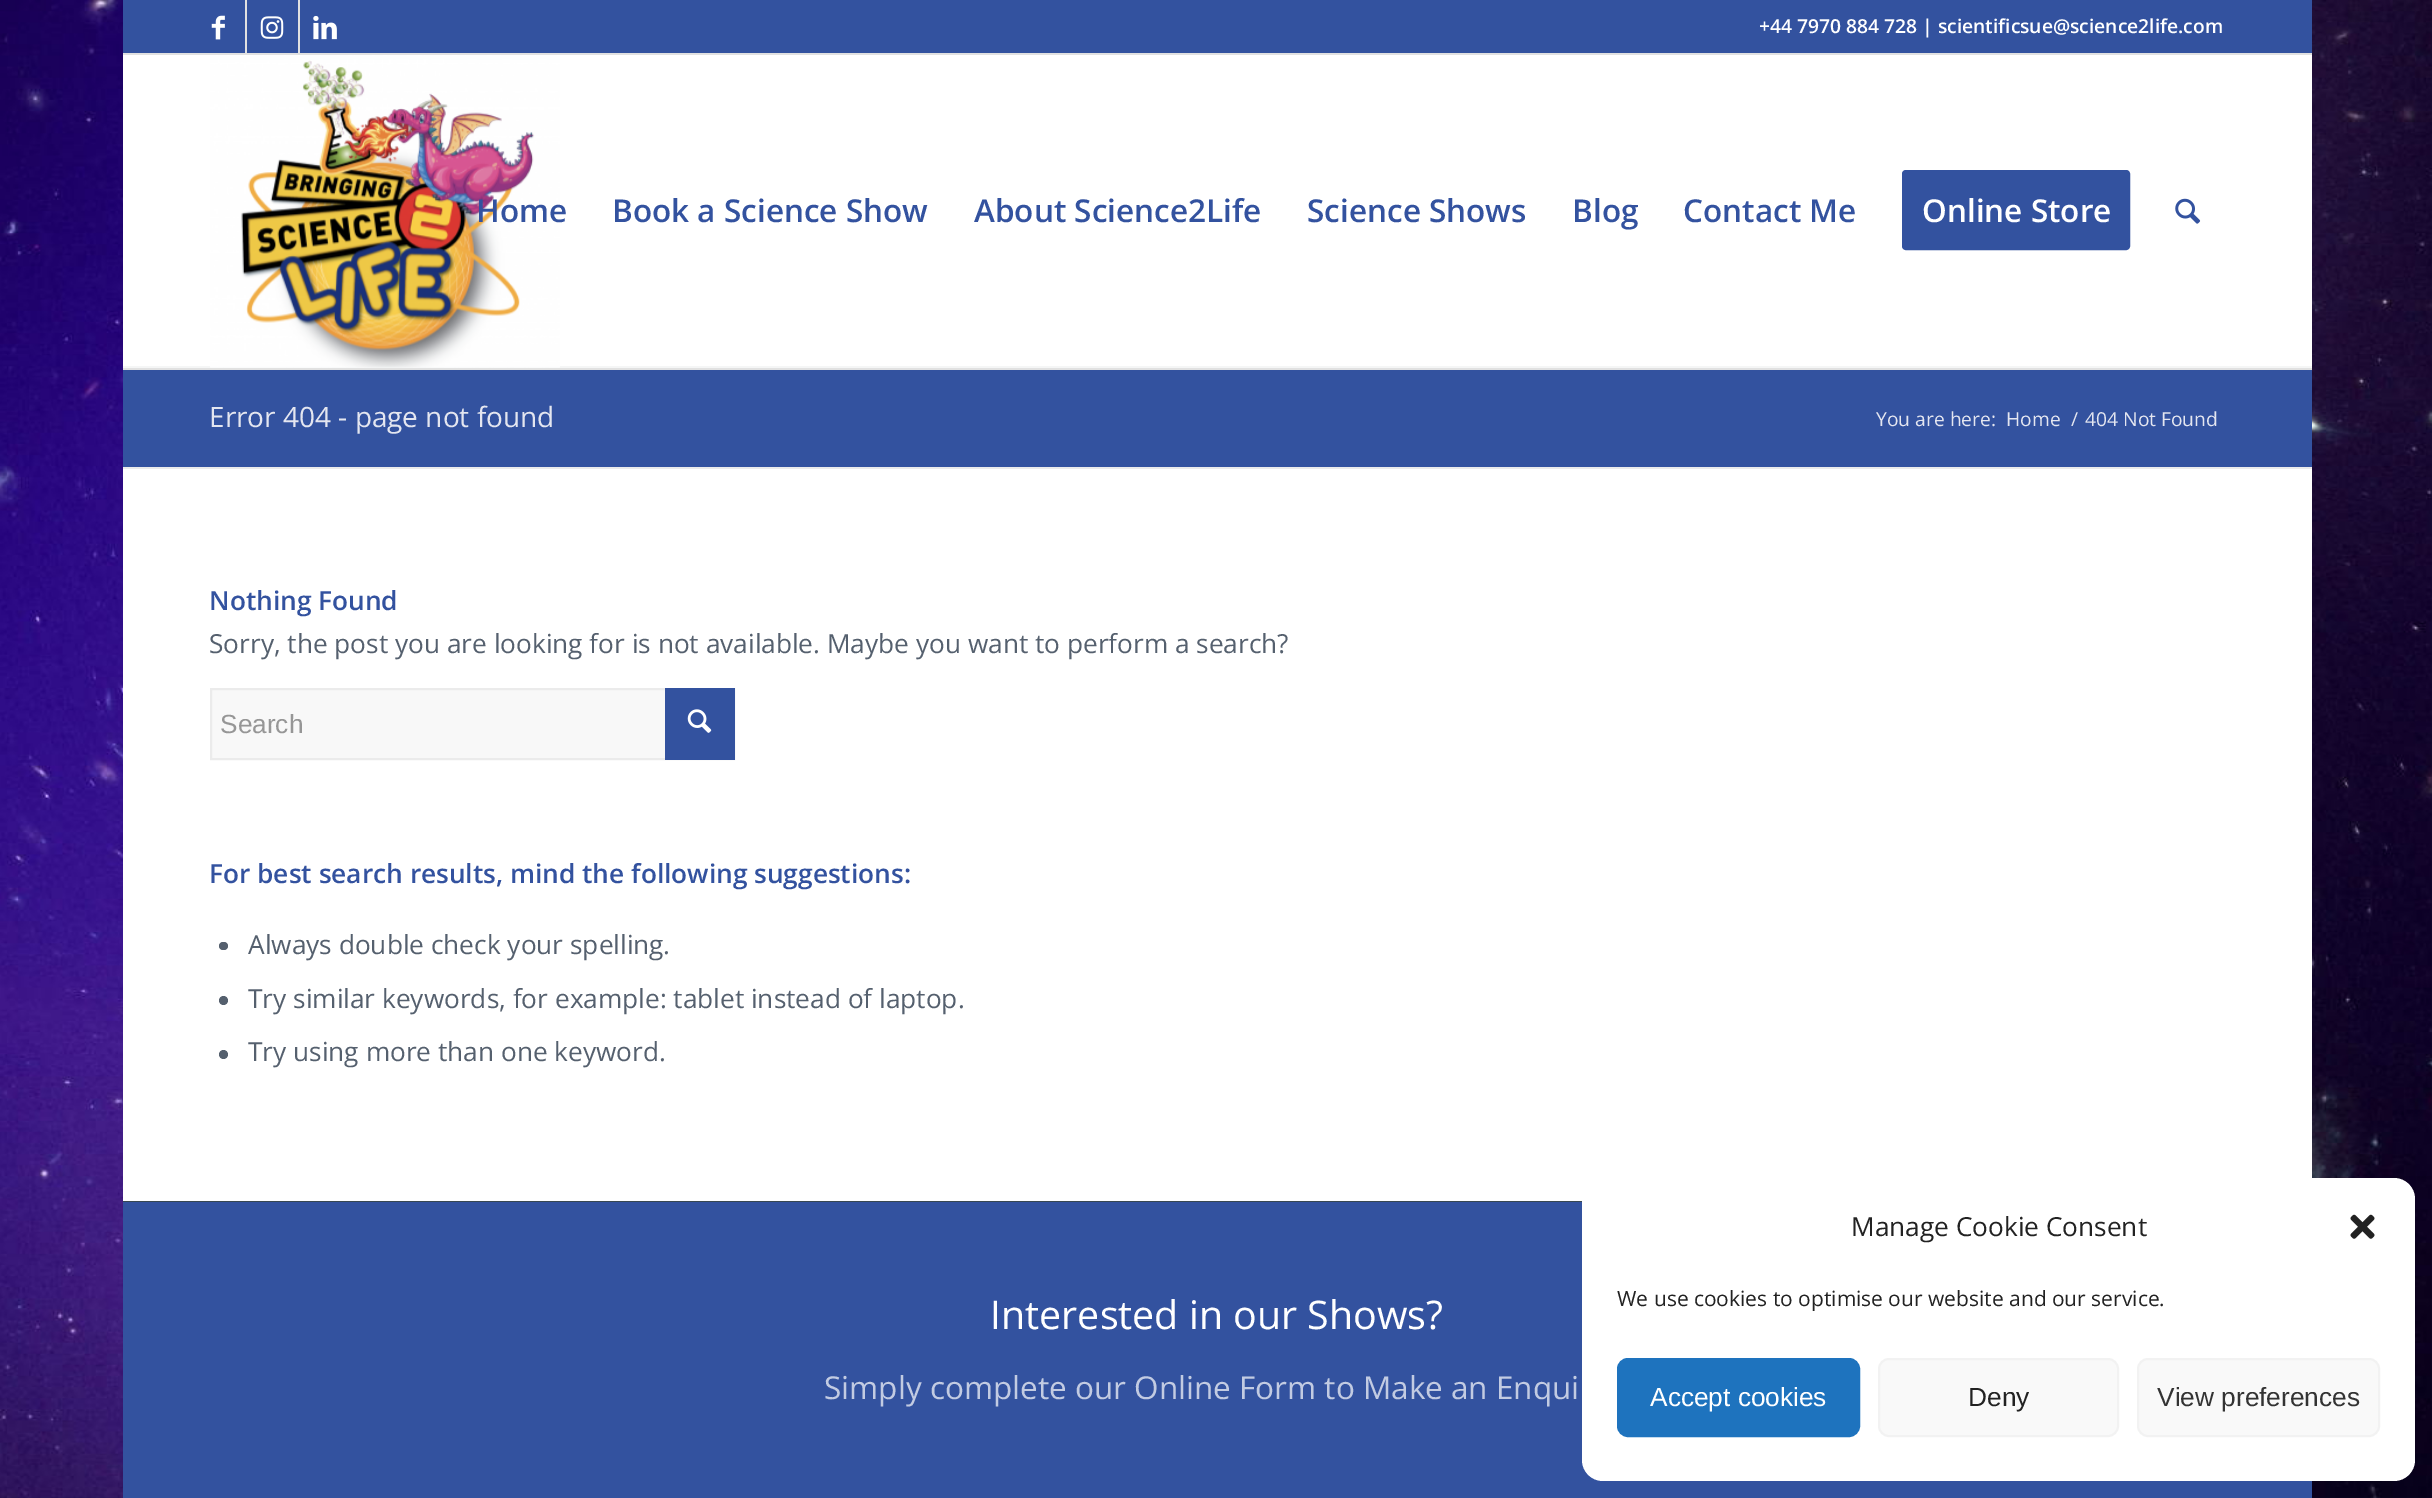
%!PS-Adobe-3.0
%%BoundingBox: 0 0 2432 1498
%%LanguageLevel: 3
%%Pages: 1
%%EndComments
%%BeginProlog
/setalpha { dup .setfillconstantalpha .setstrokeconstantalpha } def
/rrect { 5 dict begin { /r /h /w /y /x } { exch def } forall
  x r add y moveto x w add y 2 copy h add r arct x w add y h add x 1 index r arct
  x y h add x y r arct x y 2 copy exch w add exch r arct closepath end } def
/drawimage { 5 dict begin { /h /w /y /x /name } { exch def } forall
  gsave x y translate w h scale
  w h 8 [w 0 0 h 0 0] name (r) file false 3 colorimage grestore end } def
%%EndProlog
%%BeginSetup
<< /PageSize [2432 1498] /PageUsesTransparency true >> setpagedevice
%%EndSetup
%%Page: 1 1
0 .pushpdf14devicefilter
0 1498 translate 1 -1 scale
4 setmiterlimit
1 setgray
0 0 2432 1498 rectfill
(images/1.raw) 0 0 2432 1498 drawimage
0.2 0.322 0.624 setrgbcolor
123 0 2189 53 rectfill
0.882 setgray
123 53 2189 2 rectfill
245 0 2 53 rectfill
(images/2.raw) 211 15 14 25 drawimage
298 0 2 53 rectfill
(images/3.raw) 260 16 24 23 drawimage
(images/4.raw) 313 15 24 25 drawimage
1 setgray
123 55 2189 1146 rectfill
0.882 setgray
123 368 2189 2 rectfill
0.22 0.282 0.322 setrgbcolor
123 366 2189 2 rectfill
0.95 setalpha
1 setgray
123 366 2189 2 rectfill
1 setalpha
(images/5.raw) 210 55 350 313 drawimage
0.2 0.322 0.624 setrgbcolor
1904 172 224 76 2 rrect gsave fill grestore
4 setlinewidth
stroke
(images/6.raw) 2175 198 26 26 drawimage
123 370 2189 97 rectfill
0.922 setgray
123 467 2189 2 rectfill
0.973 setgray
212 690 453 68 rectfill
0.922 setgray
2 setlinewidth
211 689 523 70 rectstroke
0.2 0.322 0.624 setrgbcolor
665 688 70 72 rectfill
(images/7.raw) 687 709 25 24 drawimage
0.333 0.376 0.431 setrgbcolor
219 942 9 8 4 rrect fill
newpath 223.5 1000.5 4.5 0 360 arc closepath fill
newpath 223.5 1054.5 4.5 0 360 arc closepath fill
0.22 0.282 0.322 setrgbcolor
123 1201 1459 1 rectfill
0.2 0.322 0.624 setrgbcolor
123 1202 2189 296 rectfill
1 setgray
1582 1178 833 303 21 rrect fill
(images/8.raw) 2350 1214 25 25 drawimage
0.118 0.451 0.745 setrgbcolor
1618 1359 241 77 10 rrect gsave fill grestore
stroke
0.976 setgray
1879 1359 239 77 10 rrect gsave fill grestore
0.949 setgray
stroke
0.976 setgray
2138 1359 241 77 10 rrect gsave fill grestore
0.949 setgray
stroke
/OpenSans-SemiBold [19.25 0 0 -19.25 0 0] selectfont
1 setgray
1759 33 moveto (+44 7970 884 728 | scientificsue@science2life.com) show
/OpenSans-SemiBold [31.5 0 0 -31.5 0 0] selectfont
0.2 0.322 0.624 setrgbcolor
476 222 moveto (Home) show
612 222 moveto (Book a Science Show) show
974 222 moveto (About Science2Life) show
1307 222 moveto (Science Shows) show
1572 222 moveto (Blog) show
1683 222 moveto (Contact Me) show
1 setgray
1922 222 moveto (Online Store) show
/OpenSans-Regular [28 0 0 -28 0 0] selectfont
0.894 0.902 0.941 setrgbcolor
209 427 moveto (Error 404 - page not found) show
/OpenSans-Regular [19.25 0 0 -19.25 0 0] selectfont
1876 426 moveto (You are here:) show
2006 426 moveto (Home) show
2071 426 moveto (/) show
2085 426 moveto (404 Not Found) show
/OpenSans-SemiBold [26.25 0 0 -26.25 0 0] selectfont
0.2 0.322 0.624 setrgbcolor
209 610 moveto (Nothing Found) show
/OpenSans-Regular [26.25 0 0 -26.25 0 0] selectfont
0.333 0.376 0.431 setrgbcolor
209 653 moveto (Sorry, the post you are looking for is not available. Maybe you want to perform a search?) show
/LiberationSans-Regular [26.25 0 0 -26.25 0 0] selectfont
0.588 setgray
220 733 moveto (Search) show
/OpenSans-SemiBold [26.25 0 0 -26.25 0 0] selectfont
0.2 0.322 0.624 setrgbcolor
209 883 moveto (For best search results, mind the following suggestions:) show
/OpenSans-Regular [26.25 0 0 -26.25 0 0] selectfont
0.333 0.376 0.431 setrgbcolor
248 954 moveto (Always double check your spelling.) show
248 1008 moveto (Try similar keywords, for example: tablet instead of laptop.) show
248 1061 moveto (Try using more than one keyword.) show
/OpenSans-Regular [39.4 0 0 -39.4 0 0] selectfont
1 setgray
990 1329 moveto (Interested in our Shows?) show
/OpenSans-Regular [31.5 0 0 -31.5 0 0] selectfont
0.761 0.796 0.886 setrgbcolor
824 1399 moveto (Simply complete our Online Form to Make an Enqui) show
/OpenSans-Regular [26.25 0 0 -26.25 0 0] selectfont
0.133 setgray
1851 1236 moveto (Manage Cookie Consent) show
/OpenSans-Regular [21 0 0 -21 0 0] selectfont
1617 1306 moveto (We use cookies to optimise our website and our service.) show
/LiberationSans-Regular [26.25 0 0 -26.25 0 0] selectfont
1 setgray
1650 1406 moveto (Accept cookies) show
0.133 setgray
1968 1406 moveto (Deny) show
0.2 setgray
2157 1406 moveto (View preferences) show
.poppdf14devicefilter showpage
%%EOF
